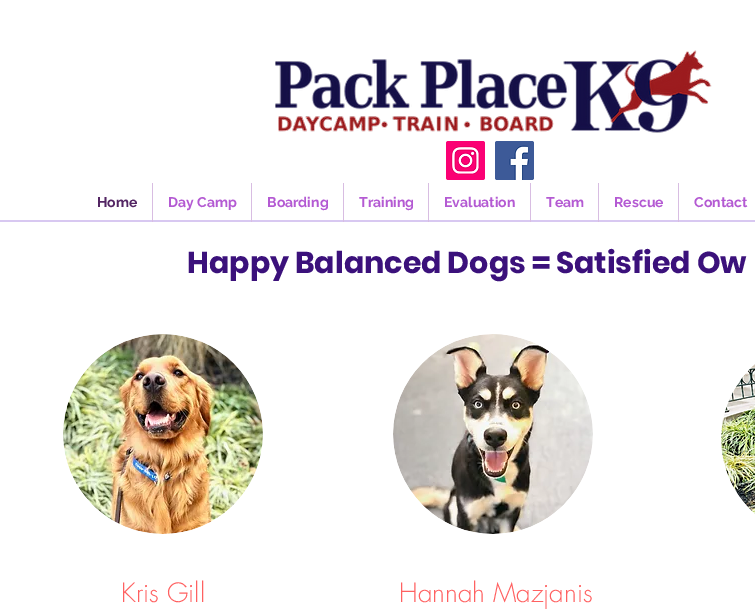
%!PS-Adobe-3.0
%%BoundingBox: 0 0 755 613
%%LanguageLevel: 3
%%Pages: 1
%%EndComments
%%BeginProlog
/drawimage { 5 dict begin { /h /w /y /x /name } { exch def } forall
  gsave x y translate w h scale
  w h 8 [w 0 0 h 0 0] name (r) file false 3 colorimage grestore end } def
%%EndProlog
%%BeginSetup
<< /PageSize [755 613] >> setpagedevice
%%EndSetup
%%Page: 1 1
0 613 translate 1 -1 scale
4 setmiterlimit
1 setgray
0 0 755 613 rectfill
(images/1.raw) 275 50 437 83 drawimage
(images/2.raw) 446 141 39 39 drawimage
(images/3.raw) 495 141 39 39 drawimage
0.847 0.784 0.945 setrgbcolor
0 220 755 2 rectfill
0.847 0.741 0.886 setrgbcolor
152 183 1 39 rectfill
251 183 1 39 rectfill
343 183 1 39 rectfill
428 183 1 39 rectfill
530 183 1 39 rectfill
598 183 1 39 rectfill
678 183 1 39 rectfill
(images/4.raw) 721 364 34 150 drawimage
(images/5.raw) 63 334 200 200 drawimage
(images/6.raw) 393 334 200 200 drawimage
/Raleway-Bold [14 0 0 -14 0 0] selectfont
0.325 0.145 0.388 setrgbcolor
97 207 moveto (Home) show
0.706 0.353 0.827 setrgbcolor
168 207 moveto (Day Camp) show
267 207 moveto (Boarding) show
359 207 moveto (Training) show
444 207 moveto (Evaluation) show
546 207 moveto (Team) show
614 207 moveto (Rescue) show
694 207 moveto (Contact) show
/Poppins-Bold [30 0 0 -30 0 0] selectfont
0.231 0.067 0.482 setrgbcolor
187 273 moveto (Happy Balanced Dogs = Satisfied Ow) show
/futura-Light [26 0 0 -26 0 0] selectfont
1 0.38 0.38 setrgbcolor
121 602 moveto (Kris Gill) show
399 602 moveto (Hannah Mazjanis) show
showpage
%%EOF
